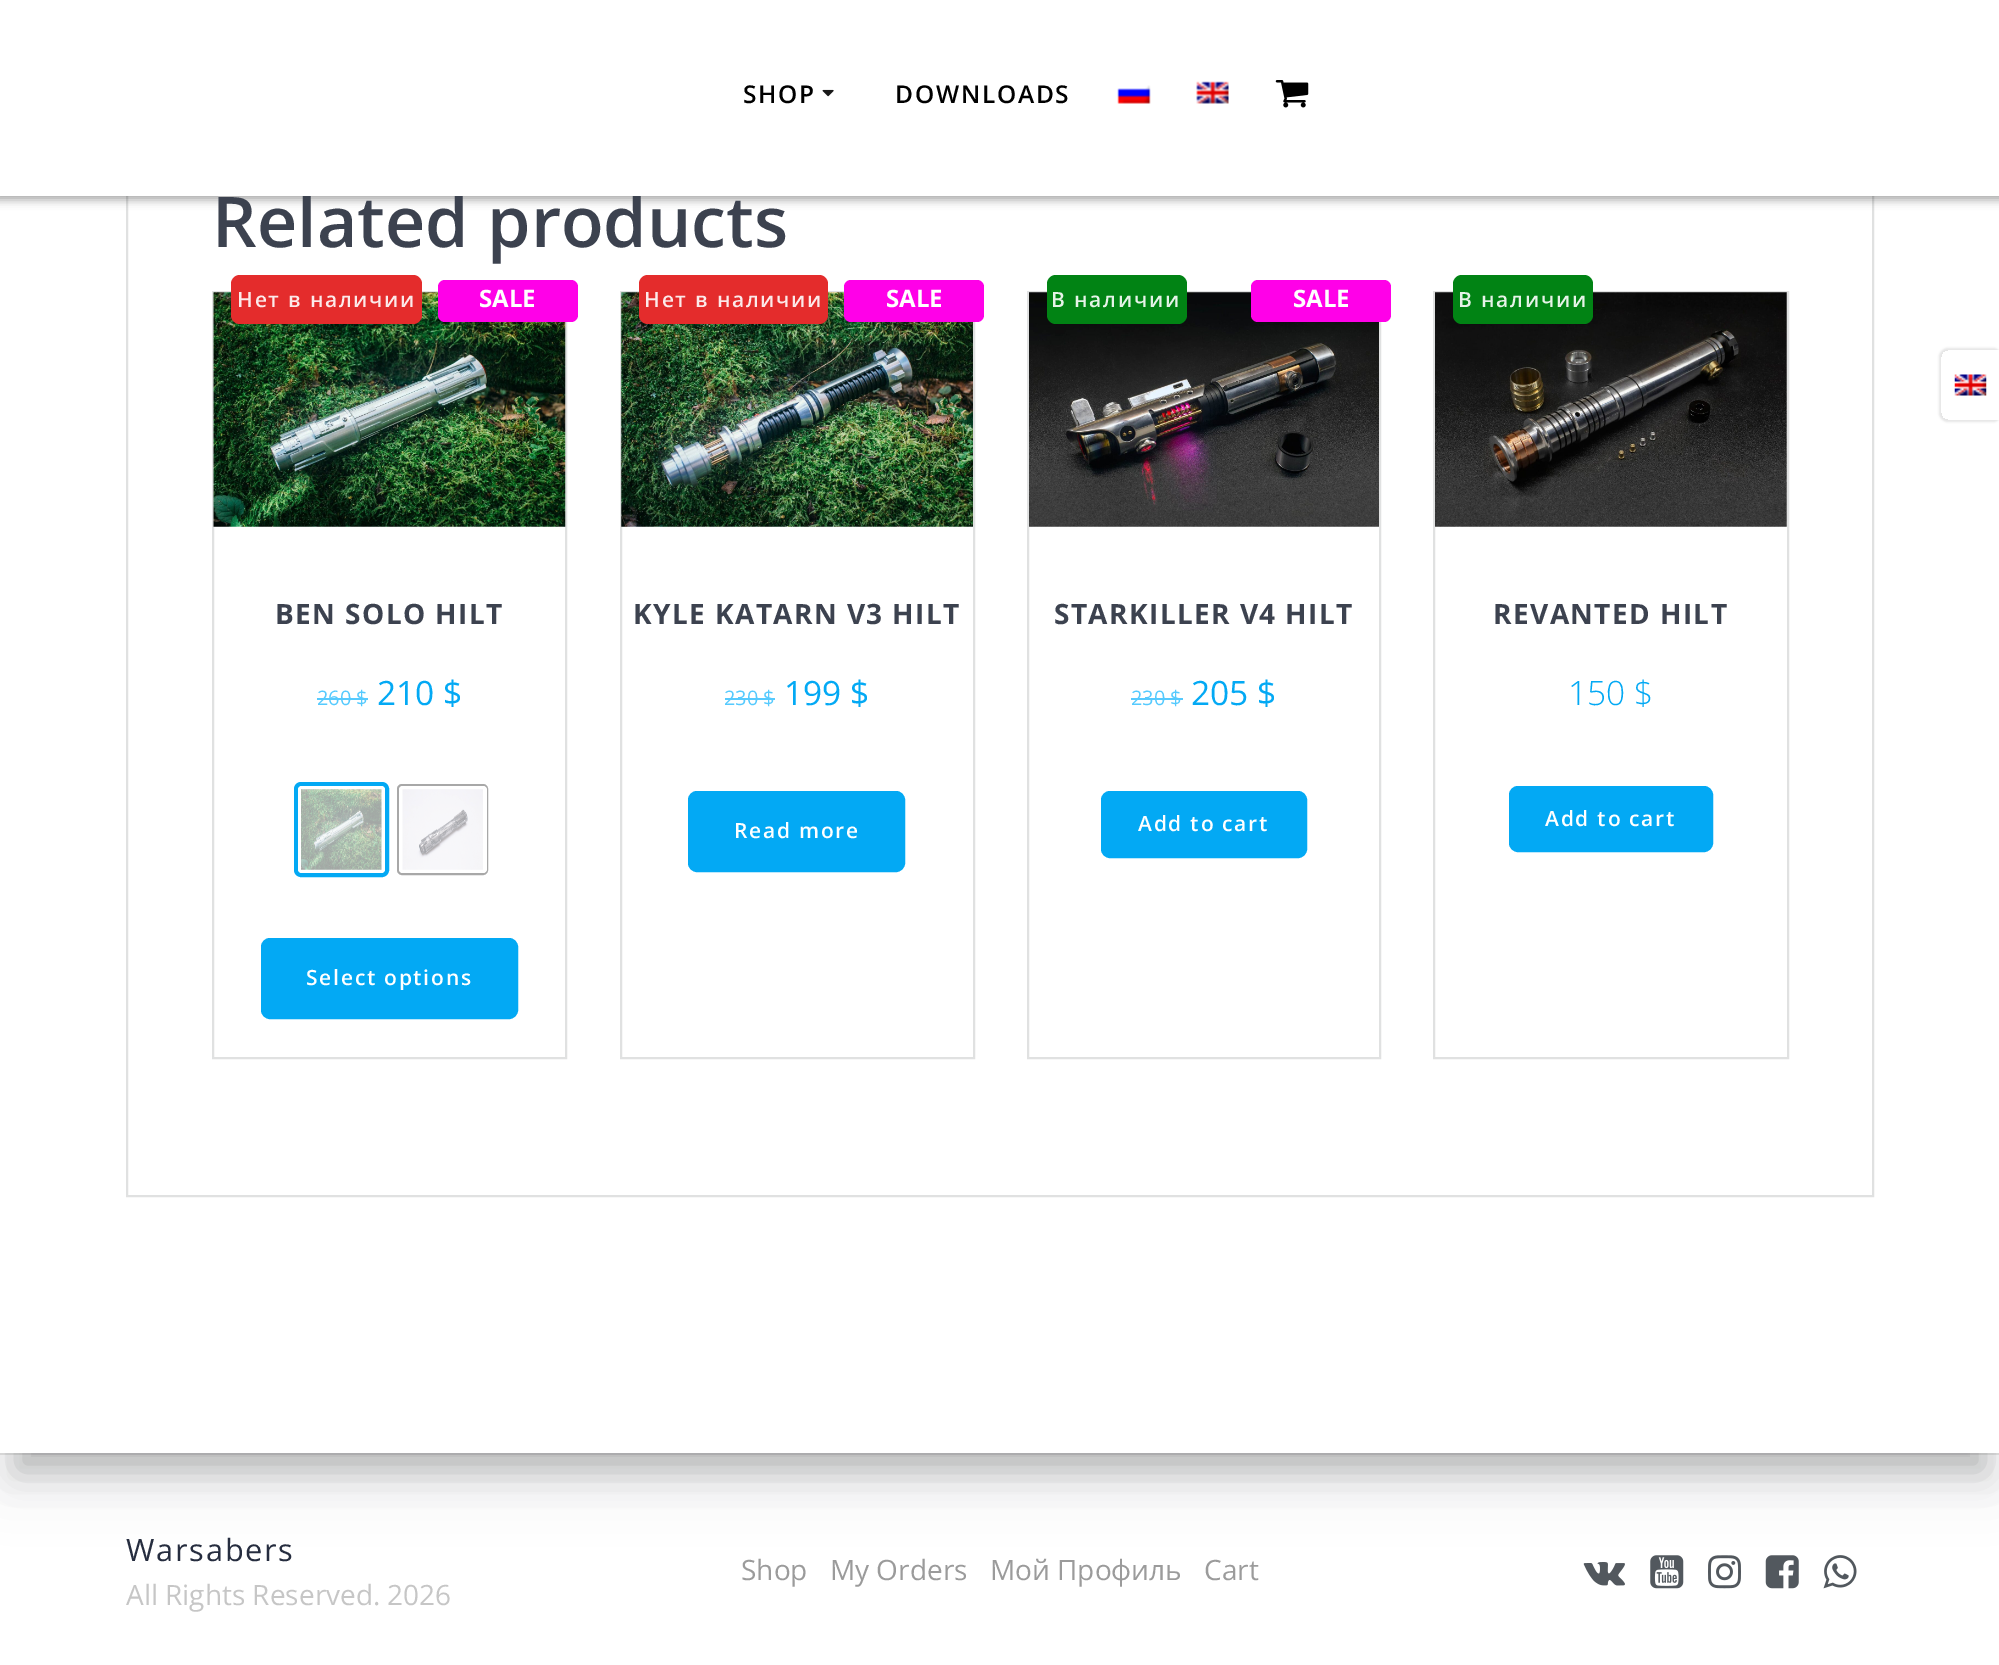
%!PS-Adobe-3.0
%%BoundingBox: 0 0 1999 1665
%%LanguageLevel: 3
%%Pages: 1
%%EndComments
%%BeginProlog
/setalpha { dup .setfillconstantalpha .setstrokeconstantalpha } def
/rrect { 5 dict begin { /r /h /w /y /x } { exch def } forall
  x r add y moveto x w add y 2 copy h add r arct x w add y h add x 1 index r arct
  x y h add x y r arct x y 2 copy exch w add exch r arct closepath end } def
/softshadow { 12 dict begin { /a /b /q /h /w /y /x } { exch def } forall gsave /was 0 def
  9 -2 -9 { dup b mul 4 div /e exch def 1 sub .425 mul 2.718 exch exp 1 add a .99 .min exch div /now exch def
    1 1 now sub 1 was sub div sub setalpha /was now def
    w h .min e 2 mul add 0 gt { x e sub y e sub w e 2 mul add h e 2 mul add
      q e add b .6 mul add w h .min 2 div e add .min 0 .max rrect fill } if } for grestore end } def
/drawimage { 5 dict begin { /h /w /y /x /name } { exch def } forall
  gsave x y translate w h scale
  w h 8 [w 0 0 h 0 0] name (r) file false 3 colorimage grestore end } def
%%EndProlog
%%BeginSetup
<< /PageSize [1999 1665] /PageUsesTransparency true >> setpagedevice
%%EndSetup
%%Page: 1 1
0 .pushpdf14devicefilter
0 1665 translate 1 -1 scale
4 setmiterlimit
1 setgray
0 0 1999 1665 rectfill
0.91 setgray
0 1453 1999 2 rectfill
(images/11.raw) 1583 1562 42 24 drawimage
(images/12.raw) 1650 1555 34 34 drawimage
(images/13.raw) 1708 1555 33 34 drawimage
(images/14.raw) 1765 1555 34 34 drawimage
(images/15.raw) 1823 1555 34 34 drawimage
0 setgray
0 -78 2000 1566 0 26 0.08 softshadow
0.192 0.204 0.224 setrgbcolor
18 -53 1965 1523 0 17.5 0.3 softshadow
1 setgray
0 196 1999 1257 rectfill
0.878 0.882 0.882 setrgbcolor
2 setlinewidth
127 -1 1746 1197 rectstroke
0 setgray
-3 -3 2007 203 0 4.5 0.33 softshadow
0.878 0.882 0.882 setrgbcolor
213 292 353 766 rectstroke
(images/5.raw) 213 292 353 235 drawimage
1 0 0.91 setrgbcolor
438 280 140 42 7 rrect fill
0.894 0.173 0.173 setrgbcolor
231 275 191 49 9 rrect fill
0.337 0.792 0.996 setrgbcolor
317 698 51 2 rectfill
0.012 0.663 0.957 setrgbcolor
4 setlinewidth
296 784 91 91 5 rrect stroke
1 setgray
298 786 87 87 4 rrect fill
(images/6.raw) 301 789 81 81 drawimage
0.659 setgray
2 setlinewidth
398 785 89 89 4 rrect stroke
1 setgray
399 786 88 87 4 rrect fill
(images/7.raw) 402 789 81 81 drawimage
0.012 0.663 0.957 setrgbcolor
263 940 253 77 7 rrect gsave fill grestore
4 setlinewidth
stroke
0.878 0.882 0.882 setrgbcolor
2 setlinewidth
621 292 353 766 rectstroke
(images/8.raw) 621 292 352 235 drawimage
1 0 0.91 setrgbcolor
844 280 140 42 7 rrect fill
0.894 0.173 0.173 setrgbcolor
639 275 189 49 9 rrect fill
0.337 0.792 0.996 setrgbcolor
725 698 50 2 rectfill
0.012 0.663 0.957 setrgbcolor
690 793 213 77 7 rrect gsave fill grestore
4 setlinewidth
stroke
0.878 0.882 0.882 setrgbcolor
2 setlinewidth
1028 292 352 766 rectstroke
(images/9.raw) 1029 292 350 235 drawimage
1 0 0.91 setrgbcolor
1251 280 140 42 7 rrect fill
0.004 0.514 0.078 setrgbcolor
1047 275 140 49 9 rrect fill
0.337 0.792 0.996 setrgbcolor
1131 698 52 2 rectfill
0.012 0.663 0.957 setrgbcolor
1103 793 202 63 7 rrect gsave fill grestore
4 setlinewidth
stroke
0.878 0.882 0.882 setrgbcolor
2 setlinewidth
1434 292 354 766 rectstroke
(images/10.raw) 1435 292 352 235 drawimage
0.004 0.514 0.078 setrgbcolor
1453 275 140 49 9 rrect fill
0.012 0.663 0.957 setrgbcolor
1511 788 200 62 7 rrect gsave fill grestore
4 setlinewidth
stroke
gsave
newpath 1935 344 moveto 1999 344 lineto 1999 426 lineto 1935 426 lineto closepath 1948 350 moveto 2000 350 lineto 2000 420 lineto 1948 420 lineto 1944 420 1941 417 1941 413 curveto 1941 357 lineto 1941 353 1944 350 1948 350 curveto closepath eoclip newpath
0 setgray
1939 348 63 74 9 1 0.1 softshadow
grestore
(images/16.raw) 1954 374 33 22 drawimage
/OpenSans-SemiBold [70 0 0 -70 0 0] selectfont
0.235 0.259 0.31 setrgbcolor
212 247 moveto (Related products) show
1 setgray
0 0 1999 196 rectfill
(images/4.raw) 1275 80 34 28 drawimage
(images/3.raw) 1196 81 33 23 drawimage
(images/2.raw) 1117 85 34 19 drawimage
/OpenSans-SemiBold [24.5 0 0 -24.5 0 0] selectfont
0 setgray
895 103 moveto 1.75 0 (DOWNLOADS) ashow
(images/1.raw) 822 89 12 8 drawimage
743 103 moveto 1.75 0 (SHOP) ashow
/OpenSans-Bold [24 0 0 -24 0 0] selectfont
1 setgray
479 307 moveto (SALE) show
/OpenSans-SemiBold [21 0 0 -21 0 0] selectfont
0.988 0.918 0.918 setrgbcolor
237 307 moveto 1.75 0 (Нет в наличии) ashow
/OpenSans-Bold [28 0 0 -28 0 0] selectfont
0.235 0.259 0.31 setrgbcolor
275 624 moveto 1.4 0 (BEN SOLO HILT) ashow
/OpenSans-Regular [20 0 0 -20 0 0] selectfont
0.337 0.792 0.996 setrgbcolor
317 705 moveto (260 $) show
/OpenSans-Regular [33.5 0 0 -33.5 0 0] selectfont
0.012 0.663 0.957 setrgbcolor
377 705 moveto (210 $) show
/OpenSans-SemiBold [21 0 0 -21 0 0] selectfont
1 setgray
306 985 moveto 1.75 0 (Select options) ashow
/OpenSans-Bold [24 0 0 -24 0 0] selectfont
886 307 moveto (SALE) show
/OpenSans-SemiBold [21 0 0 -21 0 0] selectfont
0.988 0.918 0.918 setrgbcolor
644 307 moveto 1.75 0 (Нет в наличии) ashow
/OpenSans-Bold [28 0 0 -28 0 0] selectfont
0.235 0.259 0.31 setrgbcolor
633 624 moveto 1.4 0 (KYLE KATARN V3 HILT) ashow
/OpenSans-Regular [20 0 0 -20 0 0] selectfont
0.337 0.792 0.996 setrgbcolor
724 705 moveto (230 $) show
/OpenSans-Regular [33.5 0 0 -33.5 0 0] selectfont
0.012 0.663 0.957 setrgbcolor
784 705 moveto (199 $) show
/OpenSans-SemiBold [21 0 0 -21 0 0] selectfont
1 setgray
734 838 moveto 1.75 0 (Read more) ashow
/OpenSans-Bold [24 0 0 -24 0 0] selectfont
1293 307 moveto (SALE) show
/OpenSans-SemiBold [21 0 0 -21 0 0] selectfont
0.902 0.953 0.91 setrgbcolor
1051 307 moveto 1.75 0 (В наличии) ashow
/OpenSans-Bold [28 0 0 -28 0 0] selectfont
0.235 0.259 0.31 setrgbcolor
1054 624 moveto 1.4 0 (STARKILLER V4 HILT) ashow
/OpenSans-Regular [20 0 0 -20 0 0] selectfont
0.337 0.792 0.996 setrgbcolor
1131 705 moveto (230 $) show
/OpenSans-Regular [33.5 0 0 -33.5 0 0] selectfont
0.012 0.663 0.957 setrgbcolor
1191 705 moveto (205 $) show
/OpenSans-SemiBold [21 0 0 -21 0 0] selectfont
1 setgray
1138 831 moveto 1.75 0 (Add to cart) ashow
0.902 0.953 0.91 setrgbcolor
1458 307 moveto 1.75 0 (В наличии) ashow
/OpenSans-Bold [28 0 0 -28 0 0] selectfont
0.235 0.259 0.31 setrgbcolor
1493 624 moveto 1.4 0 (REVANTED HILT) ashow
/OpenSans-Light [33.5 0 0 -33.5 0 0] selectfont
0.012 0.663 0.957 setrgbcolor
1568 705 moveto (150 $) show
/OpenSans-SemiBold [21 0 0 -21 0 0] selectfont
1 setgray
1545 826 moveto 1.75 0 (Add to cart) ashow
/OpenSans-Regular [30.75 0 0 -30.75 0 0] selectfont
0.149 0.176 0.247 setrgbcolor
126 1561 moveto 1.75 0 (Warsabers) ashow
/OpenSans-Regular [28 0 0 -28 0 0] selectfont
0.776 setgray
126 1605 moveto (All Rights Reserved. 2026) show
0.608 setgray
741 1580 moveto (Shop) show
830 1580 moveto (My Orders) show
990 1580 moveto (Мой Профиль) show
1204 1580 moveto (Cart) show
.poppdf14devicefilter showpage
%%EOF
